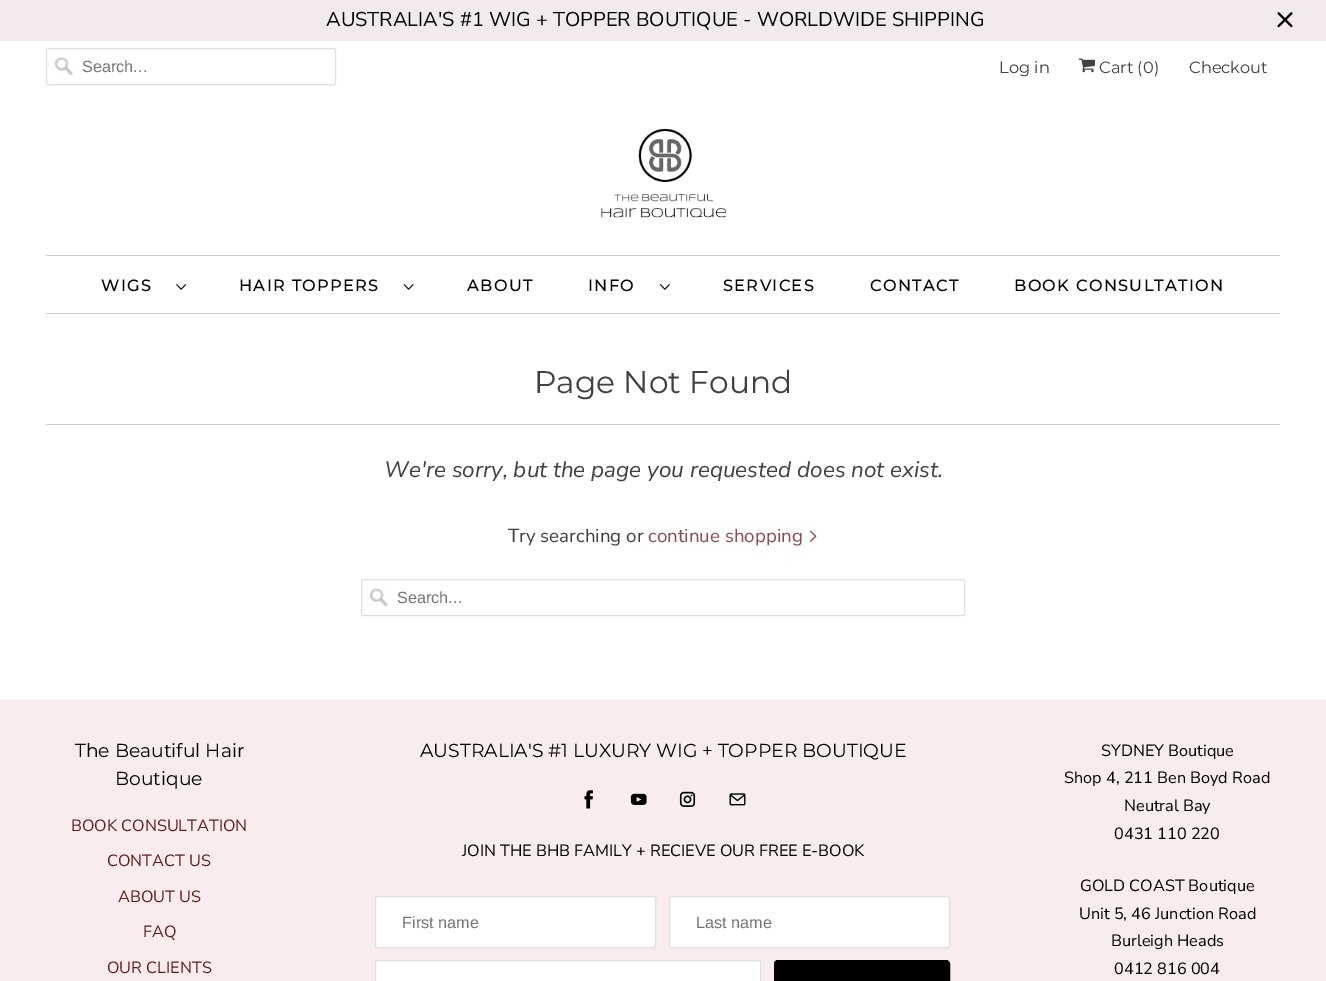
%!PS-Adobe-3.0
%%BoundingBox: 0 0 1326 981
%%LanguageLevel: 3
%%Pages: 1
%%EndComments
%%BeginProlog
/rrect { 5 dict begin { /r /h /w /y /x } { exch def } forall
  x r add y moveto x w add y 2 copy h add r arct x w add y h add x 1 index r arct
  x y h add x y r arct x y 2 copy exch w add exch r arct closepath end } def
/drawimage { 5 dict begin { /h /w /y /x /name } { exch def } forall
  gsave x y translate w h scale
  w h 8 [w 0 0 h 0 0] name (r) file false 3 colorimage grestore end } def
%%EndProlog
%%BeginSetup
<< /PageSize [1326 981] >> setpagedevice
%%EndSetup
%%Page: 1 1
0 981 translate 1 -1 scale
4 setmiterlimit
1 setgray
0 0 1326 981 rectfill
0.953 0.922 0.922 setrgbcolor
0 0 1326 41 rectfill
(images/1.raw) 1277 12 16 16 drawimage
(images/2.raw) 55 57 18 18 drawimage
0.875 setgray
46.5 48.5 289 36 2 rrect stroke
(images/3.raw) 1078 58 17 15 drawimage
(images/4.raw) 601 128 126 90 drawimage
0.804 setgray
46 255 1234 1 rectfill
46 313 1234 1 rectfill
(images/5.raw) 176 284 10 6 drawimage
(images/6.raw) 403 284 11 6 drawimage
(images/7.raw) 660 284 10 6 drawimage
46 424 1234 1 rectfill
(images/8.raw) 809 530 8 12 drawimage
(images/9.raw) 370 588 18 19 drawimage
0.875 setgray
361.5 579.5 603 36 2 rrect stroke
0.973 0.925 0.925 setrgbcolor
0 699 1326 282 rectfill
(images/10.raw) 584 790 9 19 drawimage
(images/11.raw) 630 793 17 12 drawimage
(images/12.raw) 679 791 17 16 drawimage
(images/13.raw) 729 793 17 13 drawimage
1 setgray
375.5 896.5 280 51 2 rrect gsave fill grestore
0.875 setgray
stroke
1 setgray
669.5 896.5 280 51 2 rrect gsave fill grestore
0.875 setgray
stroke
1 setgray
375.5 960.5 385 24 2 rrect gsave fill grestore
0.875 setgray
stroke
0 setgray
774.5 960.5 175 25 3.5 rrect gsave fill grestore
stroke
/NunitoSans-Regular [20 0 0 -20 0 0] selectfont
326 26 moveto (AUSTRALIA'S #1 WIG + TOPPER BOUTIQUE - WORLDWIDE SHIPPING) show
/LiberationSans-Regular [16.25 0 0 -16.25 0 0] selectfont
0.459 setgray
82 72 moveto (Search...) show
/Montserrat-Regular [16.25 0 0 -16.25 0 0] selectfont
0.251 setgray
999 73 moveto (Log in) show
1099 73 moveto (Cart \(0\)) show
1189 73 moveto (Checkout) show
/Montserrat-Medium [16.25 0 0 -16.25 0 0] selectfont
0 setgray
101 291 moveto 1.25 0 (WIGS) ashow
239 291 moveto 1.25 0 (HAIR TOPPERS) ashow
467 291 moveto 1.25 0 (ABOUT) ashow
588 291 moveto 1.25 0 (INFO) ashow
723 291 moveto 1.25 0 (SERVICES) ashow
870 291 moveto 1.25 0 (CONTACT) ashow
1014 291 moveto 1.25 0 (BOOK CONSULTATION) ashow
/Montserrat-Regular [31.25 0 0 -31.25 0 0] selectfont
0.251 setgray
534 393 moveto (Page Not Found) show
/NunitoSans-Italic [22.5 0 0 -22.5 0 0] selectfont
384 477 moveto (We're sorry, but the page you requested does not exist.) show
/NunitoSans-Regular [18.75 0 0 -18.75 0 0] selectfont
508 542 moveto (Try searching or) show
0.573 0.29 0.302 setrgbcolor
648 542 moveto (continue shopping) show
/LiberationSans-Regular [16.25 0 0 -16.25 0 0] selectfont
0.459 setgray
397 603 moveto (Search...) show
/Montserrat-Regular [18.75 0 0 -18.75 0 0] selectfont
0 setgray
75 757 moveto (The Beautiful Hair) show
115 785 moveto (Boutique) show
/NunitoSans-Regular [16.25 0 0 -16.25 0 0] selectfont
0.396 0.106 0.118 setrgbcolor
71 831 moveto (BOOK CONSULTATION) show
107 866 moveto (CONTACT US) show
118 902 moveto (ABOUT US) show
143 937 moveto (FAQ) show
107 973 moveto (OUR CLIENTS) show
/Montserrat-Regular [18.75 0 0 -18.75 0 0] selectfont
0 setgray
420 757 moveto (AUSTRALIA'S #1 LUXURY WIG + TOPPER BOUTIQUE) show
/NunitoSans-Regular [16.25 0 0 -16.25 0 0] selectfont
462 856 moveto (JOIN THE BHB FAMILY + RECIEVE OUR FREE E-BOOK) show
/LiberationSans-Regular [16.25 0 0 -16.25 0 0] selectfont
0.459 setgray
402 928 moveto (First name) show
696 928 moveto (Last name) show
/NunitoSans-Regular [16.25 0 0 -16.25 0 0] selectfont
0 setgray
1101 756 moveto (SYDNEY Boutique) show
1064 783 moveto (Shop 4, 211 Ben Boyd Road) show
1124 811 moveto (Neutral Bay) show
1114 839 moveto (0431 110 220) show
1080 891 moveto (GOLD COAST Boutique) show
1079 919 moveto (Unit 5, 46 Junction Road) show
1111 946 moveto (Burleigh Heads) show
1114 974 moveto (0412 816 004) show
showpage
%%EOF
